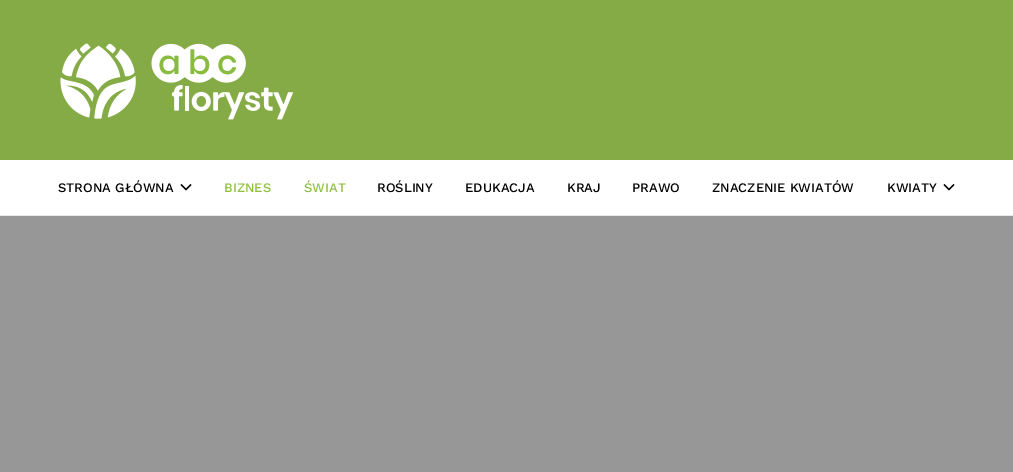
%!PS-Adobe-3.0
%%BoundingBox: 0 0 1013 472
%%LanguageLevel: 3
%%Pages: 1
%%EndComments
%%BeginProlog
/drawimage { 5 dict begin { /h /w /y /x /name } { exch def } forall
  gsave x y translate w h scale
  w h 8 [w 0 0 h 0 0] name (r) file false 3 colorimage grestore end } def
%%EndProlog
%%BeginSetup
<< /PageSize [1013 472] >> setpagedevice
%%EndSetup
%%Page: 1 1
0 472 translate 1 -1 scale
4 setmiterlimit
1 setgray
0 0 1013 472 rectfill
0.522 0.671 0.275 setrgbcolor
0 0 1013 160 rectfill
(images/1.raw) 60 43 234 77 drawimage
0.918 setgray
0 215 1013 1 rectfill
0 setgray
1.1 setlinewidth
newpath 181 184.5 moveto 186 189.5 lineto 191 184.5 lineto stroke
newpath 944 184.5 moveto 949 189.5 lineto 954 184.5 lineto stroke
0.592 setgray
0 216 1013 256 rectfill
/WorkSans-Medium [13 0 0 -13 0 0] selectfont
0 setgray
58 192 moveto (STRONA GŁÓWNA) show
0.553 0.753 0.259 setrgbcolor
224 192 moveto (BIZNES) show
304 192 moveto (ŚWIAT) show
0 setgray
377 192 moveto (ROŚLINY) show
465 192 moveto (EDUKACJA) show
567 192 moveto (KRAJ) show
632 192 moveto (PRAWO) show
712 192 moveto (ZNACZENIE KWIATÓW) show
887 192 moveto (KWIATY) show
showpage
%%EOF
